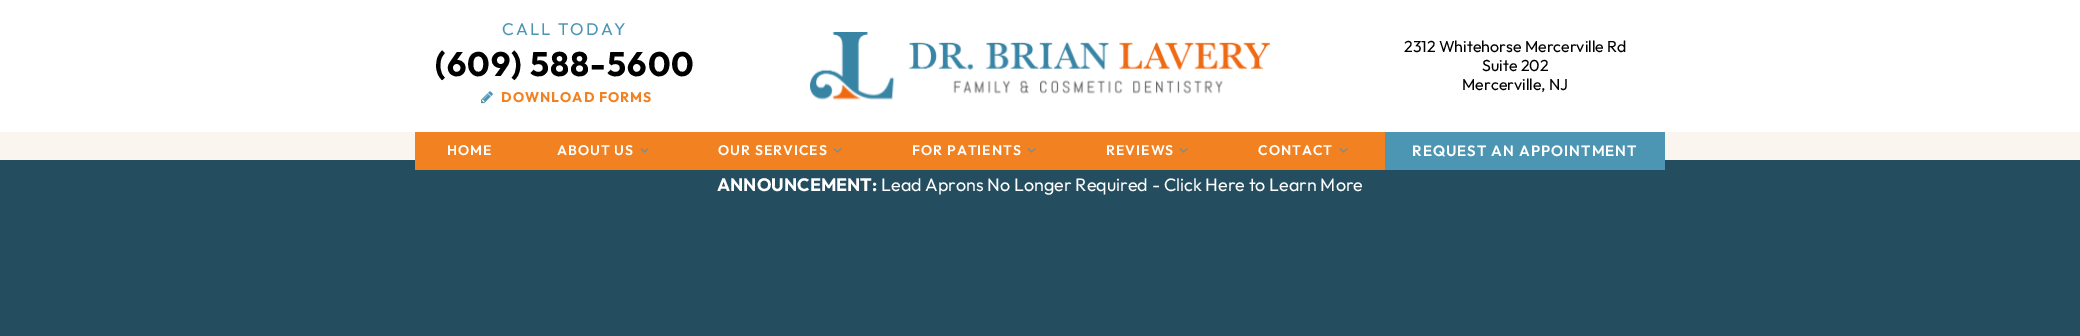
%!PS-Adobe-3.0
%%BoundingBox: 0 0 2080 336
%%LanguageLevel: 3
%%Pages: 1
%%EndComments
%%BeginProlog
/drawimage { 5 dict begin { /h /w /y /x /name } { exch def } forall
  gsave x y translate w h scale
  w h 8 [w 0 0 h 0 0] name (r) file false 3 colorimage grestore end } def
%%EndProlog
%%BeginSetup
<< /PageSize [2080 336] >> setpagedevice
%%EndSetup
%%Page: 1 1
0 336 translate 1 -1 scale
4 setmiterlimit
0.98 0.961 0.937 setrgbcolor
0 0 2080 336 rectfill
1 setgray
0 0 2080 132 rectfill
(images/1.raw) 481 91 12 13 drawimage
(images/2.raw) 810 32 460 68 drawimage
0.141 0.306 0.376 setrgbcolor
0 160 2080 176 rectfill
0.949 0.506 0.129 setrgbcolor
415 132 970 38 rectfill
(images/3.raw) 640 148 9 5 drawimage
(images/3.raw) 833 148 9 5 drawimage
(images/3.raw) 1027 148 9 5 drawimage
(images/3.raw) 1179 148 9 5 drawimage
(images/3.raw) 1339 148 9 5 drawimage
0.298 0.584 0.702 setrgbcolor
1385 132 280 38 rectfill
/Outfit-Regular [17 0 0 -17 0 0] selectfont
502 35 moveto 2 0 (CALL TODAY) ashow
/Outfit-Bold [34 0 0 -34 0 0] selectfont
0 setgray
435 76 moveto 1 0 (\(609\) 588-5600) ashow
/Outfit-Bold [14 0 0 -14 0 0] selectfont
0.949 0.506 0.129 setrgbcolor
501 102 moveto 1 0 (DOWNLOAD FORMS) ashow
/Outfit-Regular [16 0 0 -16 0 0] selectfont
0 setgray
1404 52 moveto (2312 Whitehorse Mercerville Rd) show
1482 71 moveto (Suite 202) show
1462 90 moveto (Mercerville, NJ) show
/Outfit-SemiBold [14 0 0 -14 0 0] selectfont
1 setgray
447 155 moveto 1 0 (HOME) ashow
557 155 moveto 1 0 (ABOUT US) ashow
718 155 moveto 1 0 (OUR SERVICES) ashow
912 155 moveto 1 0 (FOR PATIENTS) ashow
1106 155 moveto 1 0 (REVIEWS) ashow
1258 155 moveto 1 0 (CONTACT) ashow
/Outfit-SemiBold [15 0 0 -15 0 0] selectfont
1412 156 moveto 1 0 (REQUEST AN APPOINTMENT) ashow
/Outfit-Bold [18 0 0 -18 0 0] selectfont
717 191 moveto (ANNOUNCEMENT:) show
/Outfit-Regular [18 0 0 -18 0 0] selectfont
881 191 moveto (Lead Aprons No Longer Required - Click Here to Learn More) show
showpage
%%EOF
